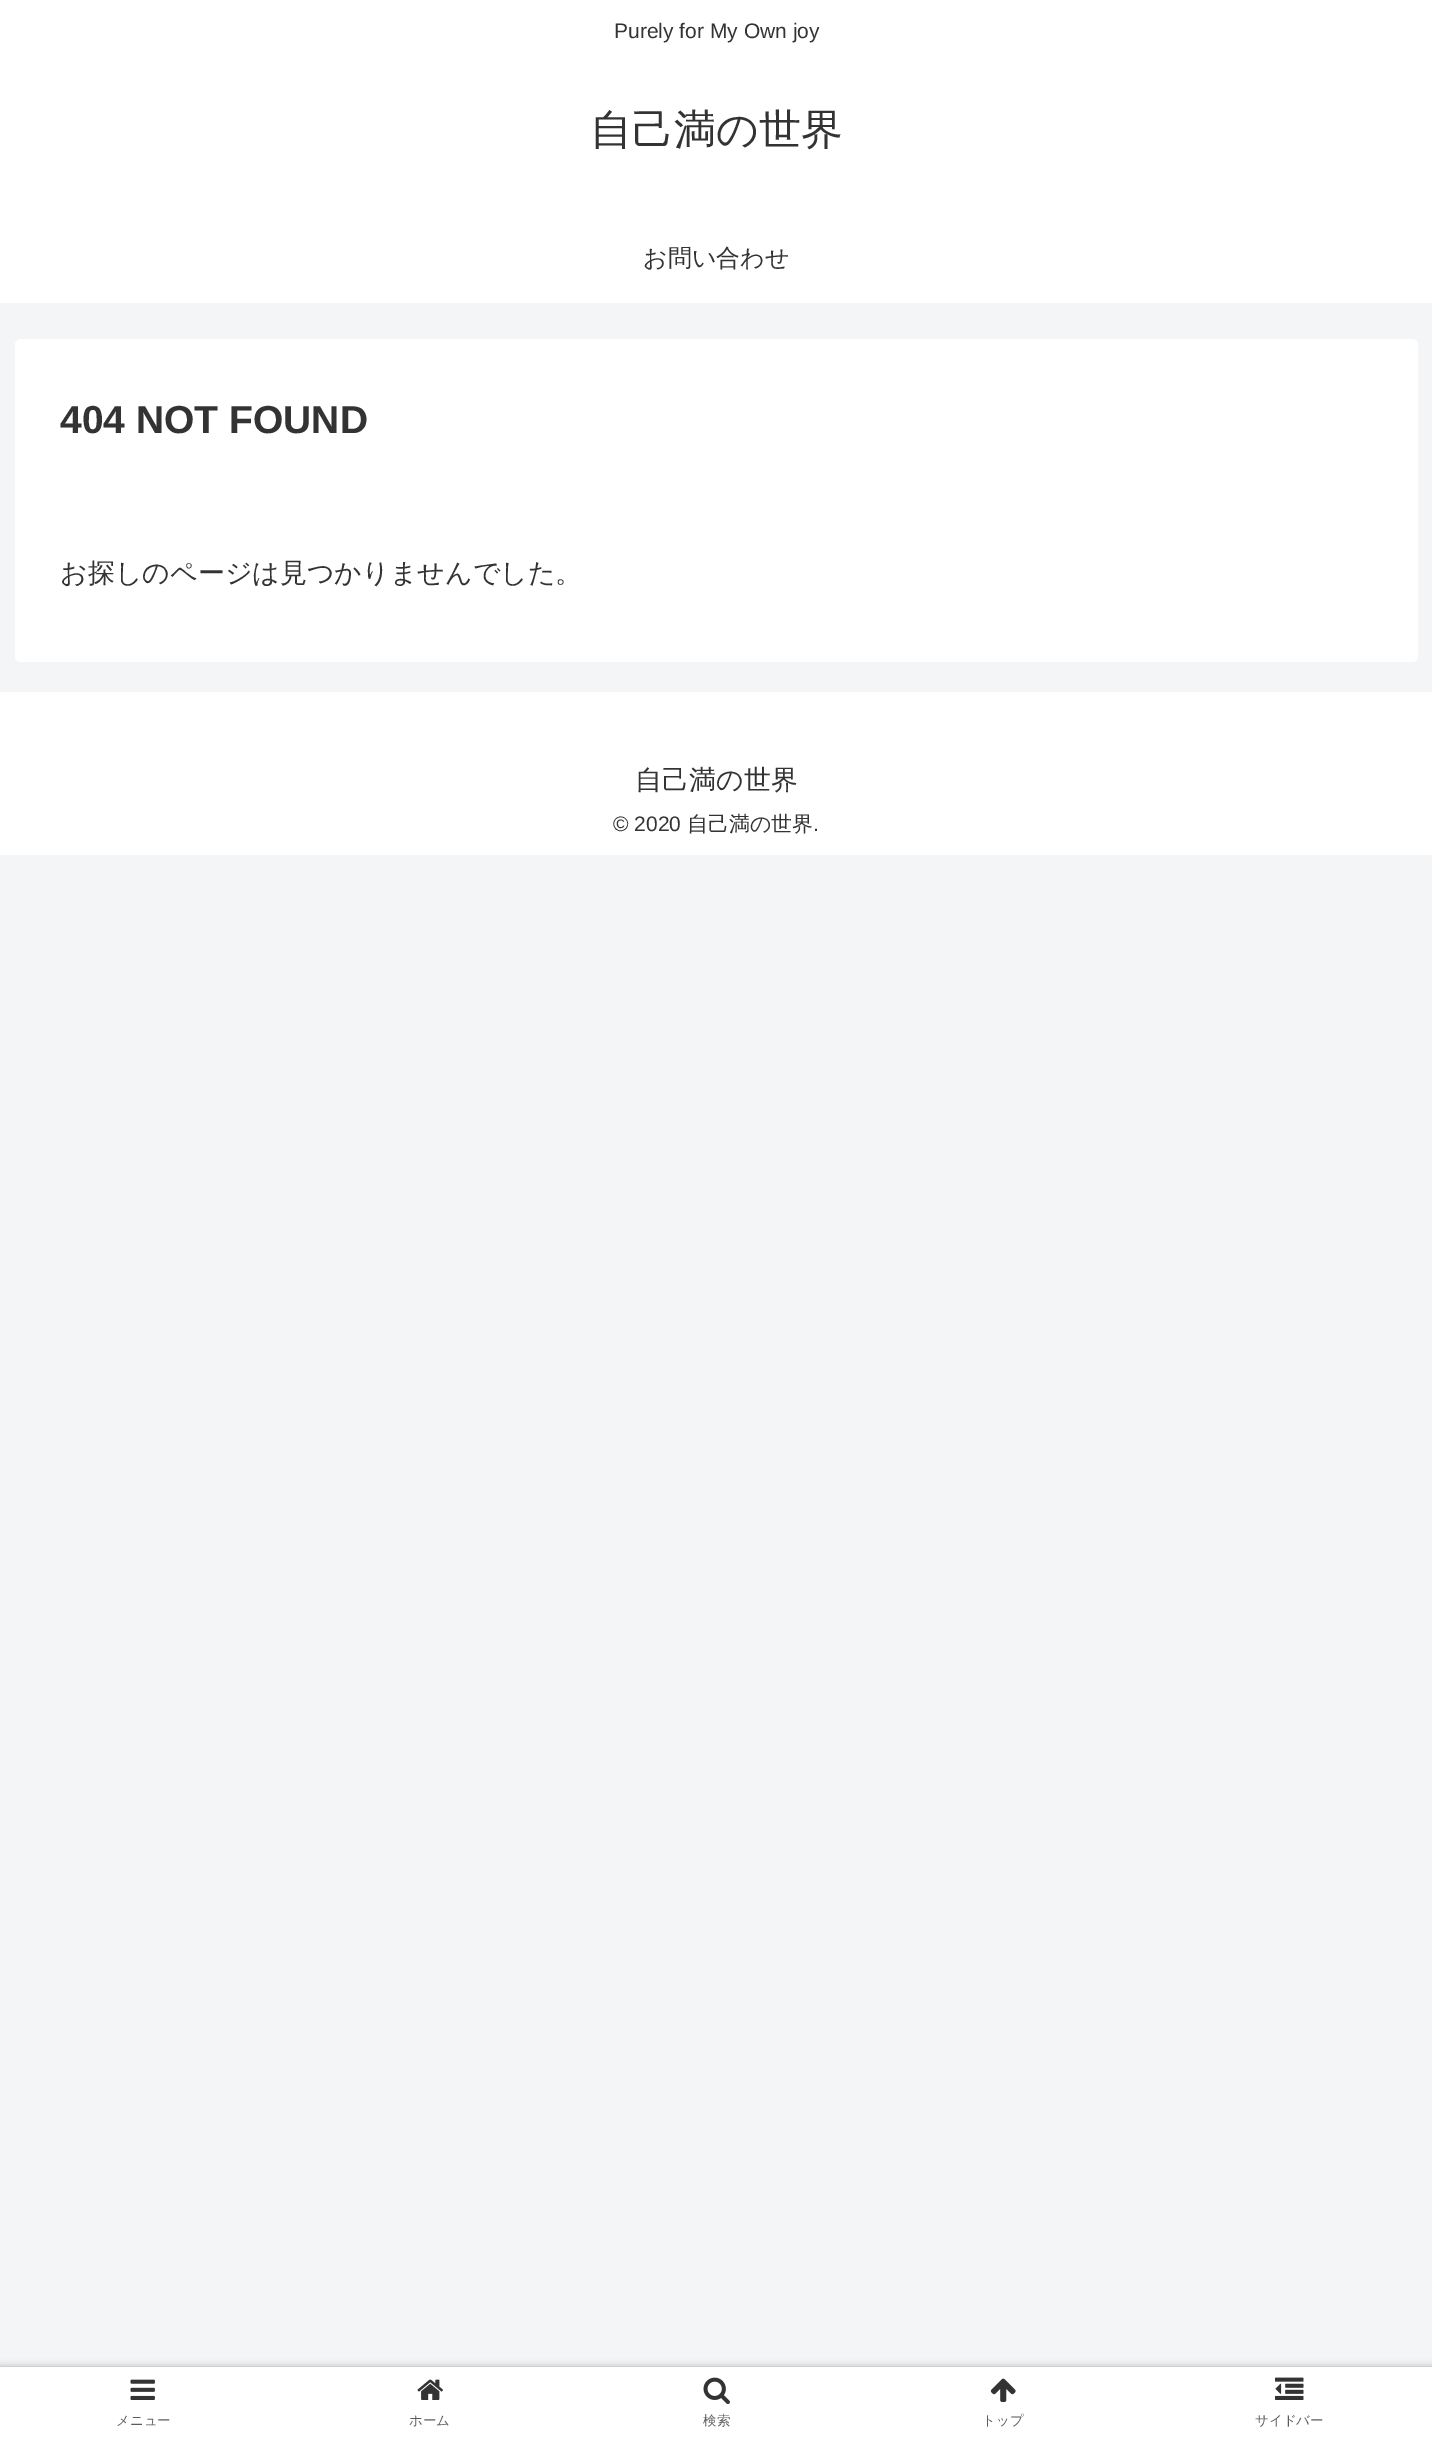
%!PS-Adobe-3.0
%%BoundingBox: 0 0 1432 2441
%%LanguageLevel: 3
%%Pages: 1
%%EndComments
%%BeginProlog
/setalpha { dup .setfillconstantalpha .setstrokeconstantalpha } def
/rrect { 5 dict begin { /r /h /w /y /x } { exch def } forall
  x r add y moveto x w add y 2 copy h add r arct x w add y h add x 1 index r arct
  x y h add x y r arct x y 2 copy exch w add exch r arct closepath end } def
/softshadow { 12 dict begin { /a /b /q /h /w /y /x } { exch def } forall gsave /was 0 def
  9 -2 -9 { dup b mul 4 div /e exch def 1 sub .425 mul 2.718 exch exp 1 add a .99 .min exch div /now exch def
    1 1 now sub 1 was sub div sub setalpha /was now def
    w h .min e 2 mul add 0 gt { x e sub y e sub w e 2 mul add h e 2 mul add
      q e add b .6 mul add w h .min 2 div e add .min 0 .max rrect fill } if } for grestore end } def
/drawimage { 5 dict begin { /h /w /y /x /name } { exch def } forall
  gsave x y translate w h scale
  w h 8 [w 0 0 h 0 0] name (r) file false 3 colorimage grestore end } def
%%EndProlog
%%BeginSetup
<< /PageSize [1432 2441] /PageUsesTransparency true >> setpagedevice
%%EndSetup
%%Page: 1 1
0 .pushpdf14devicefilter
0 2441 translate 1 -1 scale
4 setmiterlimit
0.957 0.961 0.969 setrgbcolor
0 0 1432 2441 rectfill
1 setgray
0 0 1432 303 rectfill
15 339 1403 323 6 rrect fill
0 692 1432 163 rectfill
0.663 setgray
0 2367 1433 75 0 4 1 softshadow
1 setgray
0 2367 1432 74 rectfill
(images/1.raw) 130 2379 25 21 drawimage
(images/2.raw) 417 2379 26 21 drawimage
(images/3.raw) 703 2377 27 27 drawimage
(images/4.raw) 990 2378 26 25 drawimage
(images/5.raw) 1275 2377 29 23 drawimage
/LiberationSans-Regular [21 0 0 -21 0 0] selectfont
0.2 setgray
614 38 moveto (Purely for My Own joy) show
/WenQuanYiZenHei-Medium [42 0 0 -42 0 0] selectfont
590 144 moveto (自己満の世界) show
/WenQuanYiZenHei-Medium [24 0 0 -24 0 0] selectfont
643 266 moveto (お問い合わせ) show
/LiberationSans-Bold [39 0 0 -39 0 0] selectfont
60 433 moveto (404 NOT FOUND) show
/WenQuanYiZenHei-Medium [27 0 0 -27 0 0] selectfont
60 582 moveto (お探しのページは見つかりませんでした。) show
635 789 moveto (自己満の世界) show
/LiberationSans-Regular [21 0 0 -21 0 0] selectfont
613 831 moveto (© 2020) show
/WenQuanYiZenHei-Medium [21 0 0 -21 0 0] selectfont
687 831 moveto (自己満の世界) show
/LiberationSans-Regular [21 0 0 -21 0 0] selectfont
813 831 moveto (.) show
/WenQuanYiZenHei-Medium [13.5 0 0 -13.5 0 0] selectfont
0.361 setgray
116 2425 moveto (メニュー) show
409 2425 moveto (ホーム) show
703 2425 moveto (検索) show
982 2425 moveto (トップ) show
1255 2425 moveto (サイドバー) show
.poppdf14devicefilter showpage
%%EOF
